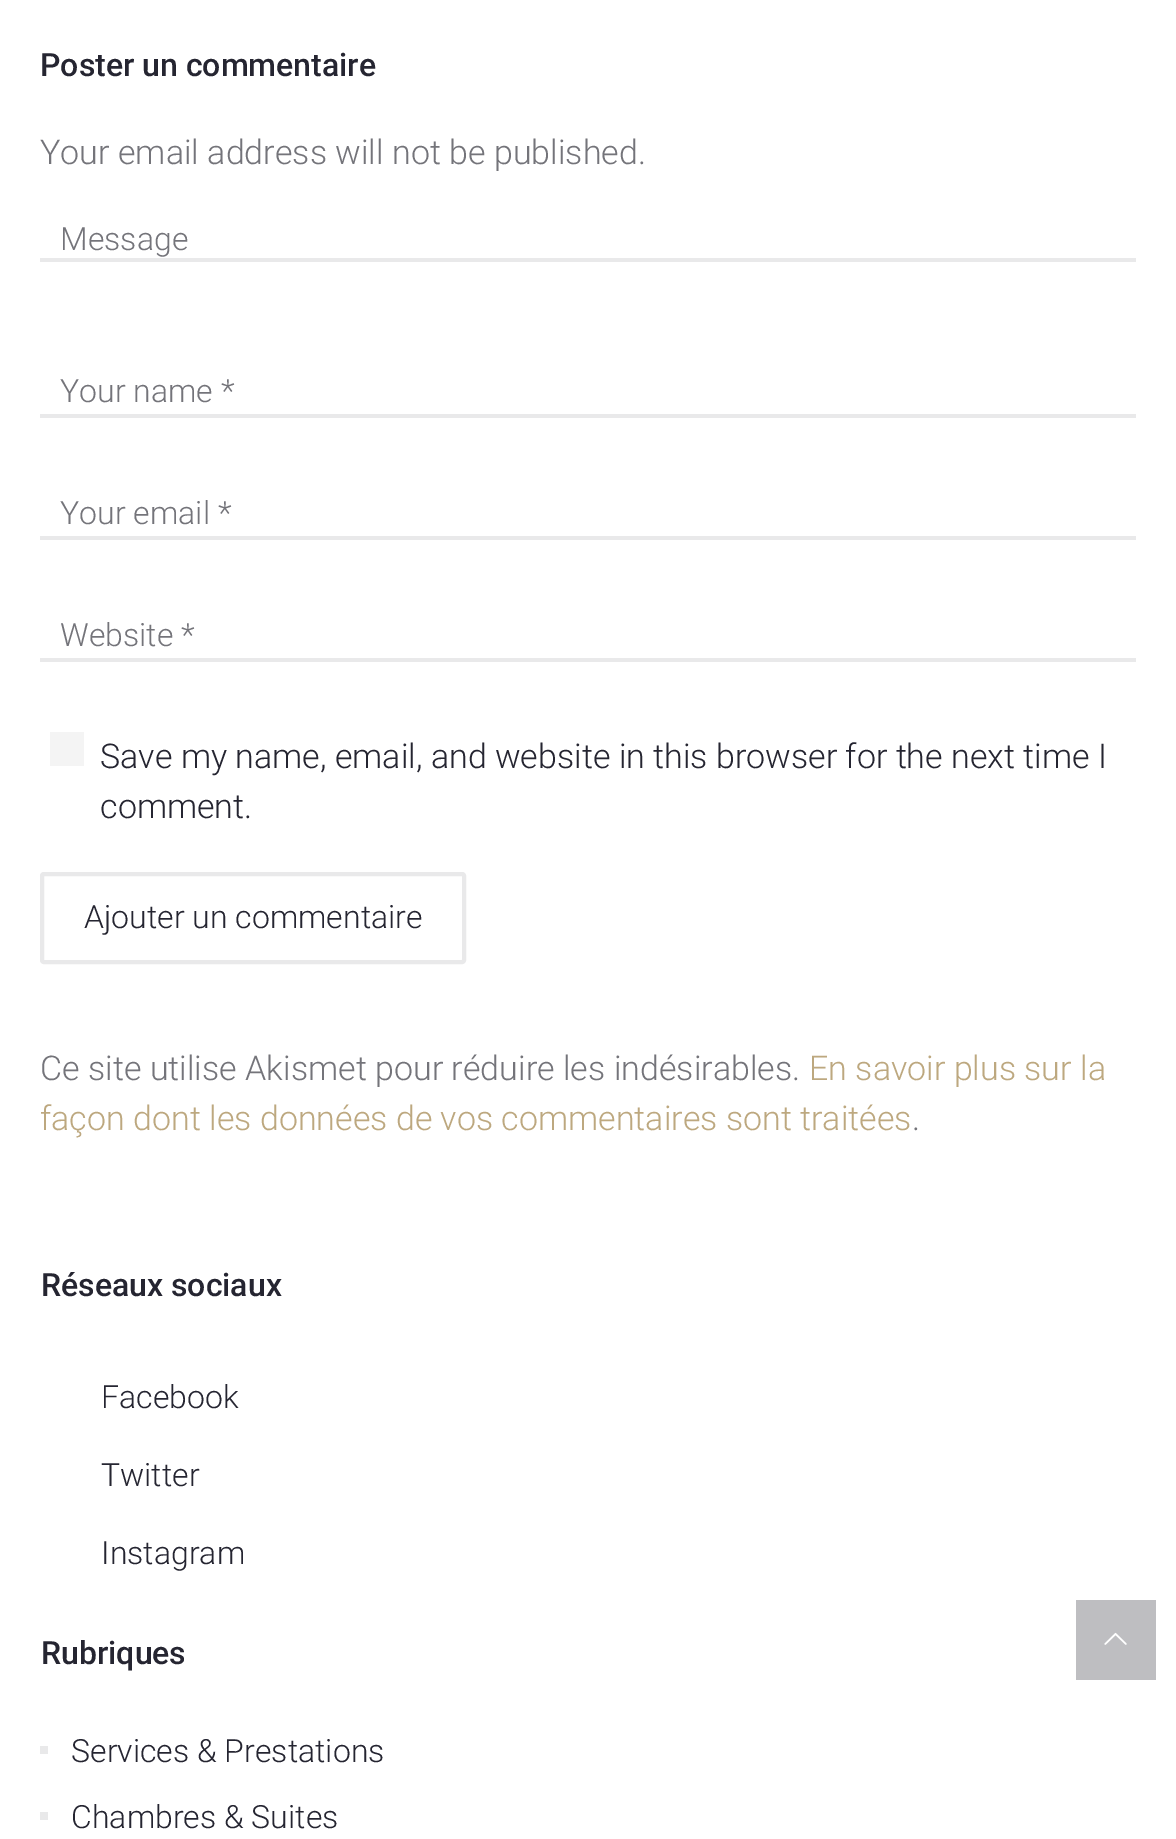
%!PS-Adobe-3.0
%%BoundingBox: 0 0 1176 1839
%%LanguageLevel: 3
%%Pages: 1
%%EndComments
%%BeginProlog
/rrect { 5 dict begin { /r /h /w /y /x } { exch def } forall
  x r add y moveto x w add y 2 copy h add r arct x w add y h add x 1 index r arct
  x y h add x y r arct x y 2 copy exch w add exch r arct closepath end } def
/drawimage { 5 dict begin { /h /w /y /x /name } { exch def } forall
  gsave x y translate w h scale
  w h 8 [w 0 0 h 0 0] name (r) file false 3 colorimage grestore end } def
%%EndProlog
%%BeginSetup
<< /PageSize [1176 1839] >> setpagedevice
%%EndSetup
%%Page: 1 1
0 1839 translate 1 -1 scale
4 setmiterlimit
1 setgray
0 0 1176 1839 rectfill
0.914 0.914 0.918 setrgbcolor
40 258 1096 4 rectfill
40 414 1096 4 rectfill
40 536 1096 4 rectfill
40 658 1096 4 rectfill
0.957 setgray
50 732 34 34 rectfill
0.914 0.914 0.918 setrgbcolor
4 setlinewidth
42 874 422 88 2 rrect stroke
40 1746 8 8 rectfill
40 1812 8 8 rectfill
0.745 0.745 0.757 setrgbcolor
1076 1600 80 80 rectfill
(images/1.raw) 1104 1632 23 13 drawimage
/Roboto-Medium [32 0 0 -32 0 0] selectfont
0.145 0.145 0.192 setrgbcolor
40 76 moveto (Poster un commentaire) show
/Roboto-Light [34 0 0 -34 0 0] selectfont
0.455 0.455 0.478 setrgbcolor
40 164 moveto (Your email address will not be published.) show
/Roboto-Light [32 0 0 -32 0 0] selectfont
60 250 moveto (Message) show
60 402 moveto (Your name *) show
60 524 moveto (Your email *) show
60 646 moveto (Website *) show
/Roboto-Light [34 0 0 -34 0 0] selectfont
0.145 0.145 0.192 setrgbcolor
100 768 moveto (Save my name, email, and website in this browser for the next time I) show
100 818 moveto (comment.) show
/Roboto-Light [32 0 0 -32 0 0] selectfont
84 928 moveto (Ajouter un commentaire) show
/Roboto-Light [34 0 0 -34 0 0] selectfont
0.455 0.455 0.478 setrgbcolor
40 1080 moveto (Ce site utilise Akismet pour réduire les indésirables.) show
0.741 0.659 0.498 setrgbcolor
809 1080 moveto (En savoir plus sur la) show
40 1130 moveto (façon dont les données de vos commentaires sont traitées) show
0.455 0.455 0.478 setrgbcolor
912 1130 moveto (.) show
/Roboto-Medium [32 0 0 -32 0 0] selectfont
0.145 0.145 0.192 setrgbcolor
41 1296 moveto (Réseaux sociaux) show
/Roboto-Light [32 0 0 -32 0 0] selectfont
101 1408 moveto (Facebook) show
101 1486 moveto (Twitter) show
101 1564 moveto (Instagram) show
/Roboto-Medium [32 0 0 -32 0 0] selectfont
41 1664 moveto (Rubriques) show
/Roboto-Light [32 0 0 -32 0 0] selectfont
71 1762 moveto (Services & Prestations) show
71 1828 moveto (Chambres & Suites) show
showpage
%%EOF
